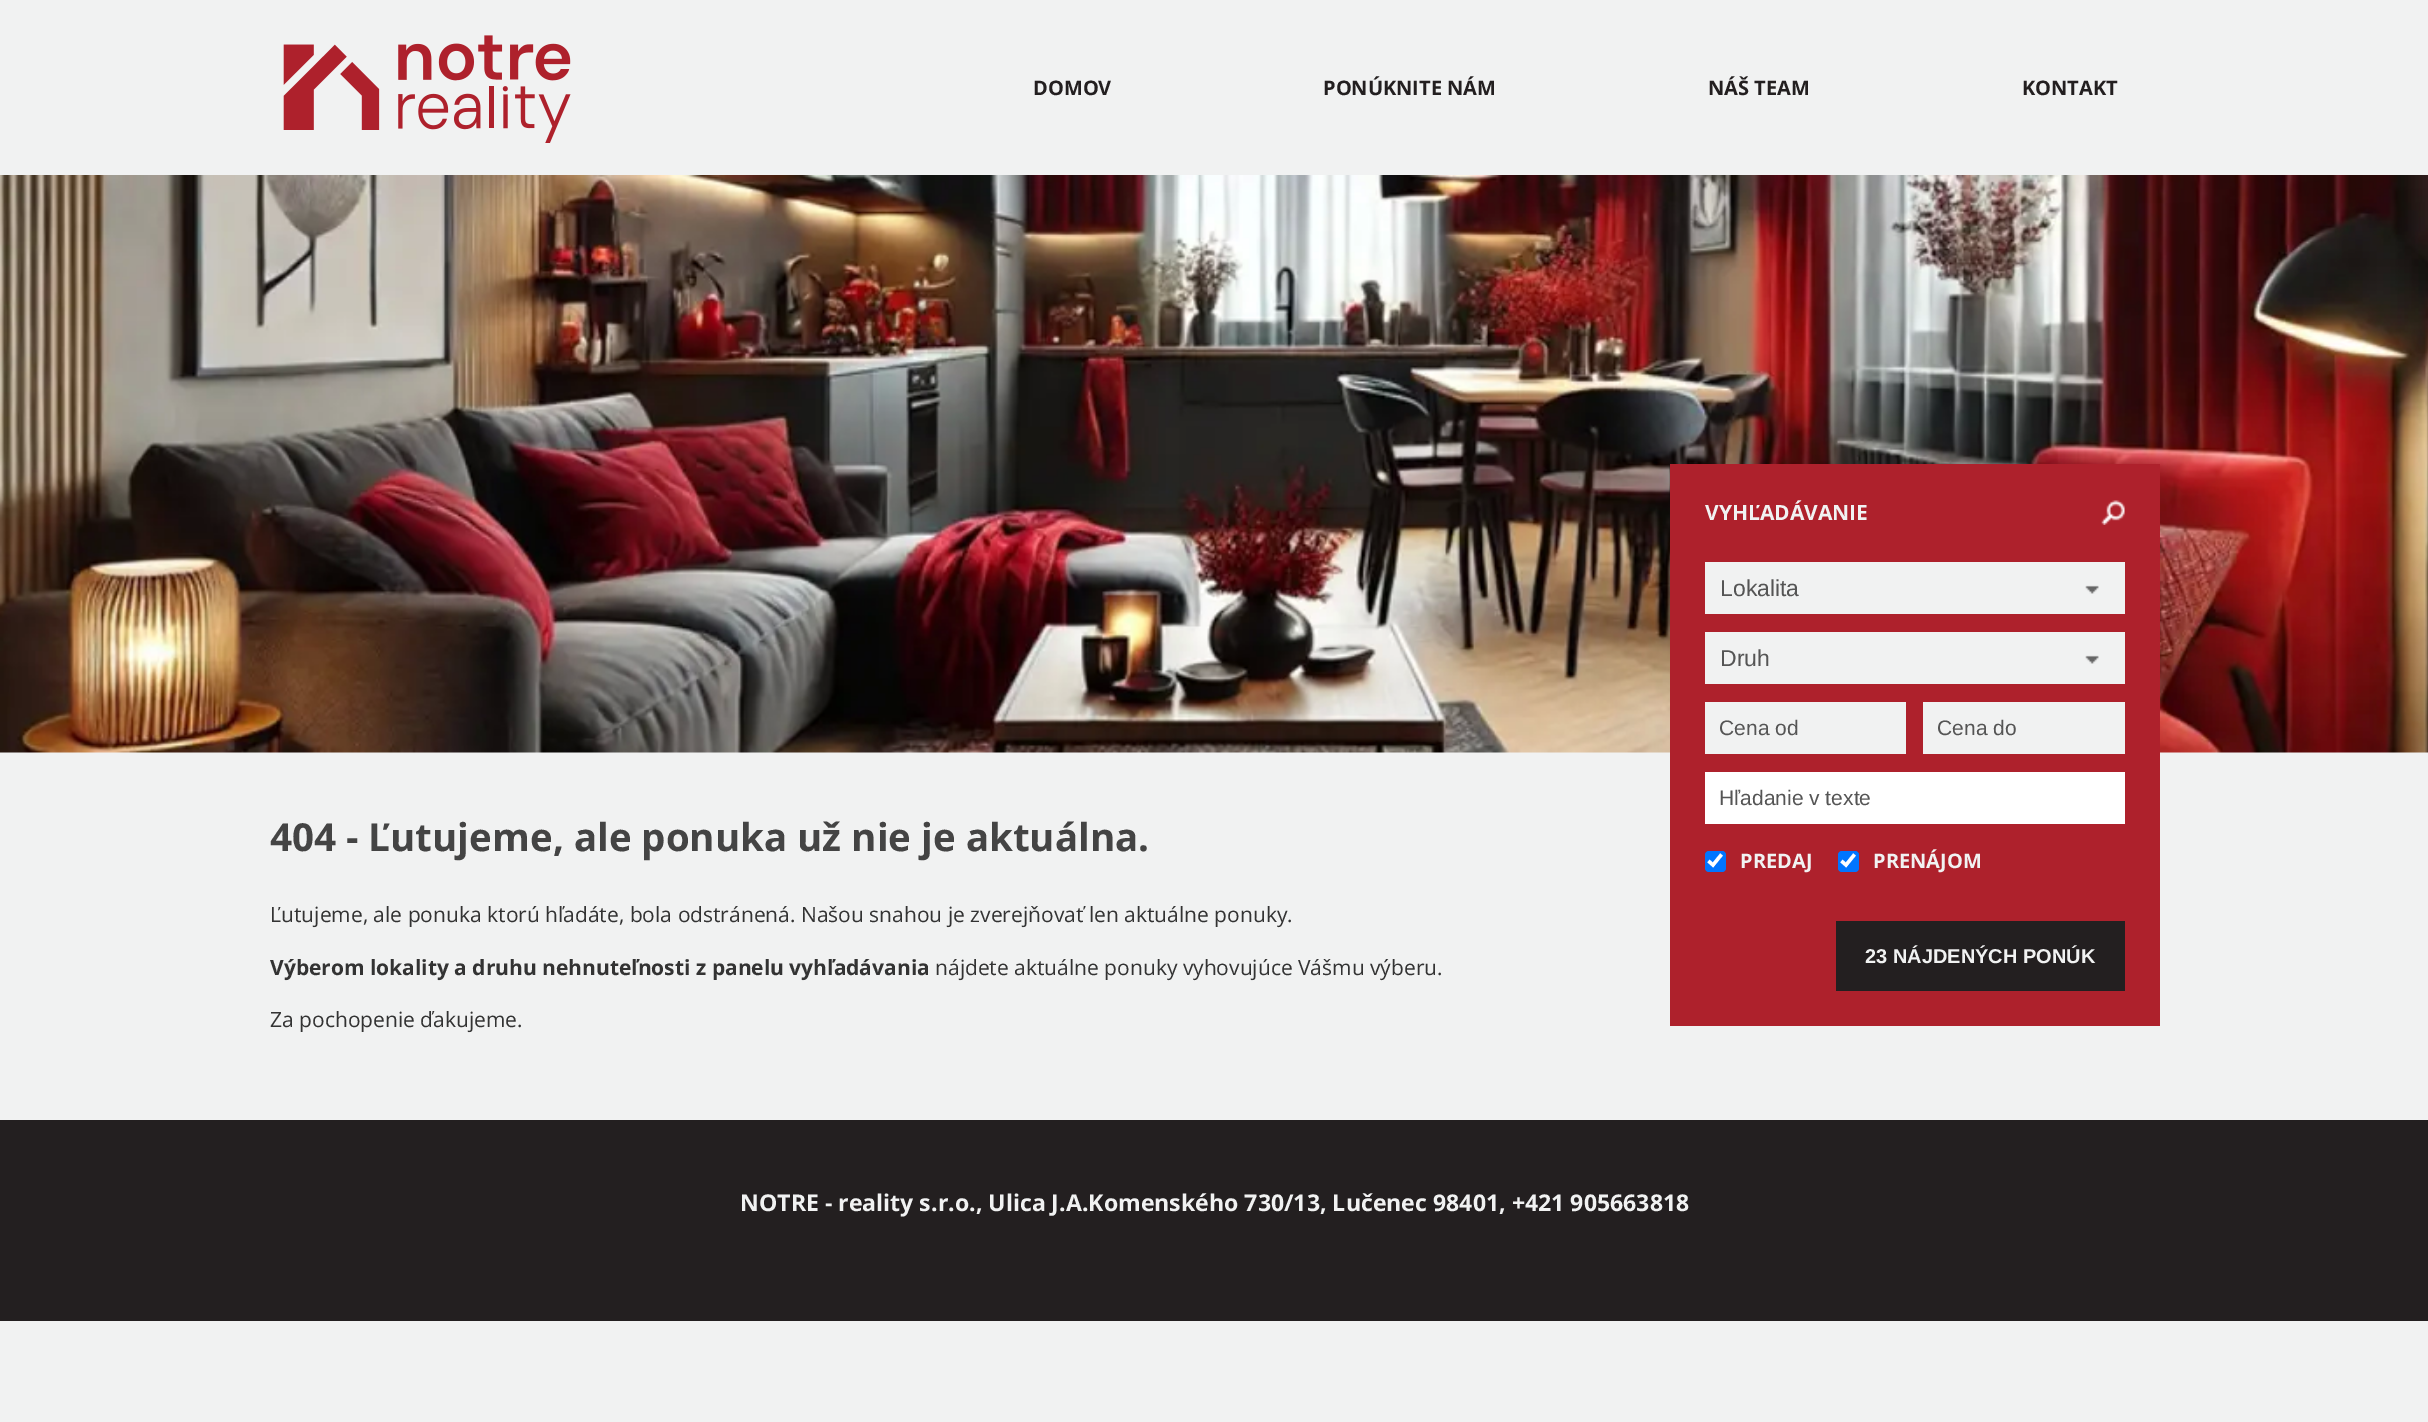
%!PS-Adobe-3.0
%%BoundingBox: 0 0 2428 1422
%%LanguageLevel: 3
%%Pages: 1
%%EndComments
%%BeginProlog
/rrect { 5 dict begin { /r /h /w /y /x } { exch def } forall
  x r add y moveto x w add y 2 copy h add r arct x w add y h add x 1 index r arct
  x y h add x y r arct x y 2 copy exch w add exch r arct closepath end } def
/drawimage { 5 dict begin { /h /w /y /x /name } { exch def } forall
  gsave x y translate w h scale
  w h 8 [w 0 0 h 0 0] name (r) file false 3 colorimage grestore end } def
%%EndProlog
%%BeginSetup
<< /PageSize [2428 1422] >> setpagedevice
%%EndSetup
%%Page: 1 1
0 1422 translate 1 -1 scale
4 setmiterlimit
0.945 0.949 0.949 setrgbcolor
0 0 2428 1422 rectfill
(images/1.raw) 0 175 2428 578 drawimage
(images/2.raw) 283 35 288 108 drawimage
0.682 0.129 0.173 setrgbcolor
1670 464 490 562 rectfill
(images/3.raw) 2101 500 24 25 drawimage
0.945 0.949 0.949 setrgbcolor
1705 562 420 52 rectfill
(images/4.raw) 2085 585 14 9 drawimage
1705 632 420 52 rectfill
(images/4.raw) 2085 655 14 9 drawimage
1705 702 201 52 rectfill
1923 702 202 52 rectfill
1 setgray
1705 772 420 52 rectfill
0 0.459 1 setrgbcolor
1705 851 21 21 4 rrect fill
1 setgray
3.4 setlinewidth
newpath 1708.5 861 moveto 1713 865 lineto 1721.5 854.5 lineto stroke
0 0.459 1 setrgbcolor
1838 851 21 21 4 rrect fill
1 setgray
newpath 1841.5 861 moveto 1846 865 lineto 1854.5 854.5 lineto stroke
0.137 0.122 0.125 setrgbcolor
1836 921 289 70 rectfill
0 1120 2428 201 rectfill
/OpenSans-Bold [20 0 0 -20 0 0] selectfont
1033 95 moveto (DOMOV) show
1323 95 moveto (PONÚKNITE NÁM) show
1708 95 moveto (NÁŠ TEAM) show
2022 95 moveto (KONTAKT) show
/OpenSans-Bold [38.5 0 0 -38.5 0 0] selectfont
0.267 setgray
270 851 moveto (404 - Ľutujeme, ale ponuka už nie je aktuálna.) show
/OpenSans-Regular [21 0 0 -21 0 0] selectfont
0.2 setgray
270 922 moveto (Ľutujeme, ale ponuka ktorú hľadáte, bola odstránená. Našou snahou je zverejňovať len aktuálne ponuky.) show
/OpenSans-Bold [21 0 0 -21 0 0] selectfont
270 975 moveto (Výberom lokality a druhu nehnuteľnosti z panelu vyhľadávania) show
/OpenSans-Regular [21 0 0 -21 0 0] selectfont
935 975 moveto (nájdete aktuálne ponuky vyhovujúce Vášmu výberu.) show
270 1027 moveto (Za pochopenie ďakujeme.) show
/OpenSans-Bold [21 0 0 -21 0 0] selectfont
0.945 0.949 0.949 setrgbcolor
1705 520 moveto (VYHĽADÁVANIE) show
/LiberationSans-Regular [23 0 0 -23 0 0] selectfont
0.333 setgray
1720 596 moveto (Lokalita) show
1720 666 moveto (Druh) show
/LiberationSans-Regular [21 0 0 -21 0 0] selectfont
1719 735 moveto (Cena od) show
1937 735 moveto (Cena do) show
1719 805 moveto (Hľadanie v texte) show
/OpenSans-Bold [20 0 0 -20 0 0] selectfont
0.945 0.949 0.949 setrgbcolor
1740 868 moveto (PREDAJ) show
1873 868 moveto (PRENÁJOM) show
/LiberationSans-Bold [20 0 0 -20 0 0] selectfont
1865 963 moveto (23 NÁJDENÝCH PONÚK) show
/OpenSans-Bold [23.1 0 0 -23.1 0 0] selectfont
740 1211 moveto (NOTRE - reality s.r.o., Ulica J.A.Komenského 730/13, Lučenec 98401, +421 905663818) show
showpage
%%EOF
